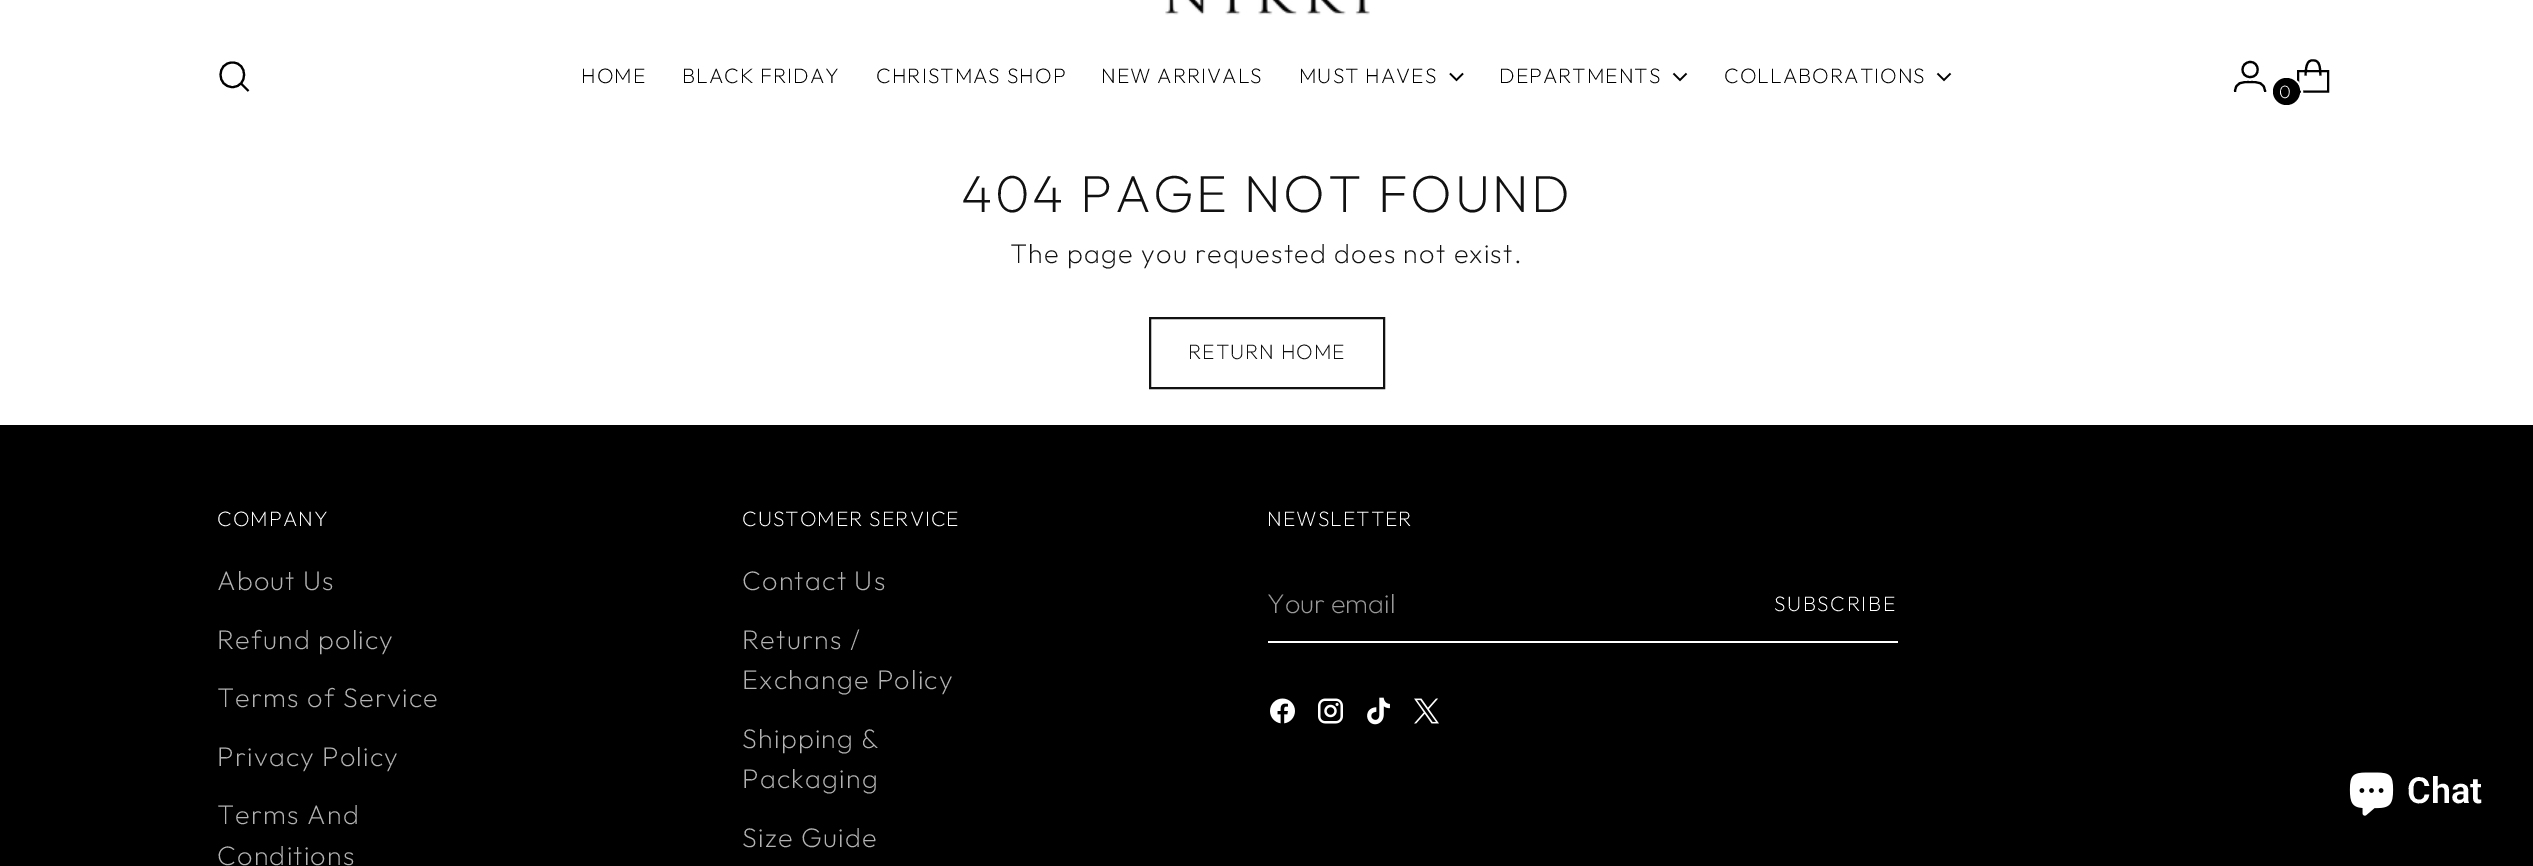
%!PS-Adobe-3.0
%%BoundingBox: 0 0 2533 866
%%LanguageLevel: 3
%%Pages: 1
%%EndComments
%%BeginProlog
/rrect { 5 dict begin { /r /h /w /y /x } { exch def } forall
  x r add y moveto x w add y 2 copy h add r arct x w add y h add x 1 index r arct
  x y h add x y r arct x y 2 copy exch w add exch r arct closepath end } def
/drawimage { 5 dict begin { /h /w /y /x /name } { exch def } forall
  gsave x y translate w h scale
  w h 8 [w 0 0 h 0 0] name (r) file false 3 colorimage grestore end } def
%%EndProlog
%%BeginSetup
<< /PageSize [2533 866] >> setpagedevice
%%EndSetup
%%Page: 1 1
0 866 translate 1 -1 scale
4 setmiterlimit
1 setgray
0 0 2533 866 rectfill
(images/1.raw) 1165 0 205 15 drawimage
0 setgray
2.1 setlinewidth
1 setlinecap
newpath 232.5 87 moveto 248 87 248 62.5 232.5 62.5 curveto 216.5 62.5 216.5 87 232.5 87 curveto closepath stroke
0 setlinecap
newpath 241 83.5 moveto 248.5 91 lineto stroke
1.7 setlinewidth
newpath 1450 73.5 moveto 1456.5 80 lineto 1463 73.5 lineto stroke
newpath 1673.5 73.5 moveto 1680 80 lineto 1686.5 73.5 lineto stroke
newpath 1937.5 73.5 moveto 1944 80 lineto 1950.5 73.5 lineto stroke
2.1 setlinewidth
newpath 2250 77 moveto 2260.5 77.5 2260 61.5 2250 62 curveto 2240 62.5 2240 77 2250 77 curveto closepath 2235 92 moveto 2235 82 2242.5 82 2250 82 curveto 2257.5 82 2265 82 2265 92 curveto stroke
2 setlinejoin
newpath 2320.5 75.5 moveto 2320 72 2320.5 68 2319 64.5 curveto 2318.5 62.5 2316.5 60.5 2314.5 60.5 curveto 2305.5 58.5 2306 70 2305.5 75.5 curveto stroke
0 setlinejoin
newpath 2328 91.5 moveto 2328 71 lineto 2298 71 lineto 2298 91.5 lineto closepath stroke
1 setgray
2 setlinewidth
2272 78 30 29 14.5 rrect stroke
0 setgray
newpath 2286.5 91.5 13.5 0 360 arc closepath fill
0.067 setgray
1150 318 234 70 rectstroke
0 setgray
0 425 2533 441 rectfill
1 setgray
1268 641 630 2 rectfill
(images/2.raw) 1270 698 25 26 drawimage
(images/3.raw) 1318 698 25 26 drawimage
(images/4.raw) 1367 697 23 28 drawimage
(images/5.raw) 1414 698 25 26 drawimage
(images/6.raw) 2349 772 45 44 drawimage
/Outfit-ExtraLight [21 0 0 -21 0 0] selectfont
0 setgray
581 83 moveto 1 0 (HOME) ashow
682 83 moveto 1 0 (BLACK FRIDAY) ashow
876 83 moveto 1 0 (CHRISTMAS SHOP) ashow
1101 83 moveto 1 0 (NEW ARRIVALS) ashow
1299 83 moveto 1 0 (MUST HAVES) ashow
1499 83 moveto 1 0 (DEPARTMENTS) ashow
1724 83 moveto 1 0 (COLLABORATIONS) ashow
/Outfit-ExtraLight [18 0 0 -18 0 0] selectfont
1 setgray
2279 98 moveto 1.2 0 (0) ashow
/Outfit-ExtraLight [52.5 0 0 -52.5 0 0] selectfont
0.067 setgray
961 212 moveto 2.6 0 (404 PAGE NOT FOUND) ashow
/Outfit-ExtraLight [27 0 0 -27 0 0] selectfont
1010 263 moveto 1.2 0 (The page you requested does not exist.) ashow
/Outfit-ExtraLight [21 0 0 -21 0 0] selectfont
1188 359 moveto 1 0 (RETURN HOME) ashow
1 setgray
217 526 moveto 1 0 (COMPANY) ashow
/Outfit-ExtraLight [27 0 0 -27 0 0] selectfont
0.702 setgray
217 590 moveto 1.2 0 (About Us) ashow
217 649 moveto 1.2 0 (Refund policy) ashow
217 707 moveto 1.2 0 (Terms of Service) ashow
217 766 moveto 1.2 0 (Privacy Policy) ashow
217 824 moveto 1.2 0 (Terms And) ashow
217 865 moveto 1.2 0 (Conditions) ashow
/Outfit-ExtraLight [21 0 0 -21 0 0] selectfont
1 setgray
742 526 moveto 1 0 (CUSTOMER SERVICE) ashow
/Outfit-ExtraLight [27 0 0 -27 0 0] selectfont
0.702 setgray
742 590 moveto 1.2 0 (Contact Us) ashow
742 649 moveto 1.2 0 (Returns /) ashow
742 689 moveto 1.2 0 (Exchange Policy) ashow
742 748 moveto 1.2 0 (Shipping &) ashow
742 788 moveto 1.2 0 (Packaging) ashow
742 847 moveto 1.2 0 (Size Guide) ashow
/Outfit-ExtraLight [21 0 0 -21 0 0] selectfont
1 setgray
1267 526 moveto 1 0 (NEWSLETTER) ashow
/Outfit-ExtraLight [27 0 0 -27 0 0] selectfont
0.6 setgray
1267 613 moveto (Your email) show
/Outfit-ExtraLight [21 0 0 -21 0 0] selectfont
1 setgray
1774 611 moveto 1.5 0 (SUBSCRIBE) ashow
/Roboto-SemiBold [36 0 0 -36 0 0] selectfont
2407 803 moveto (Chat) show
showpage
%%EOF
